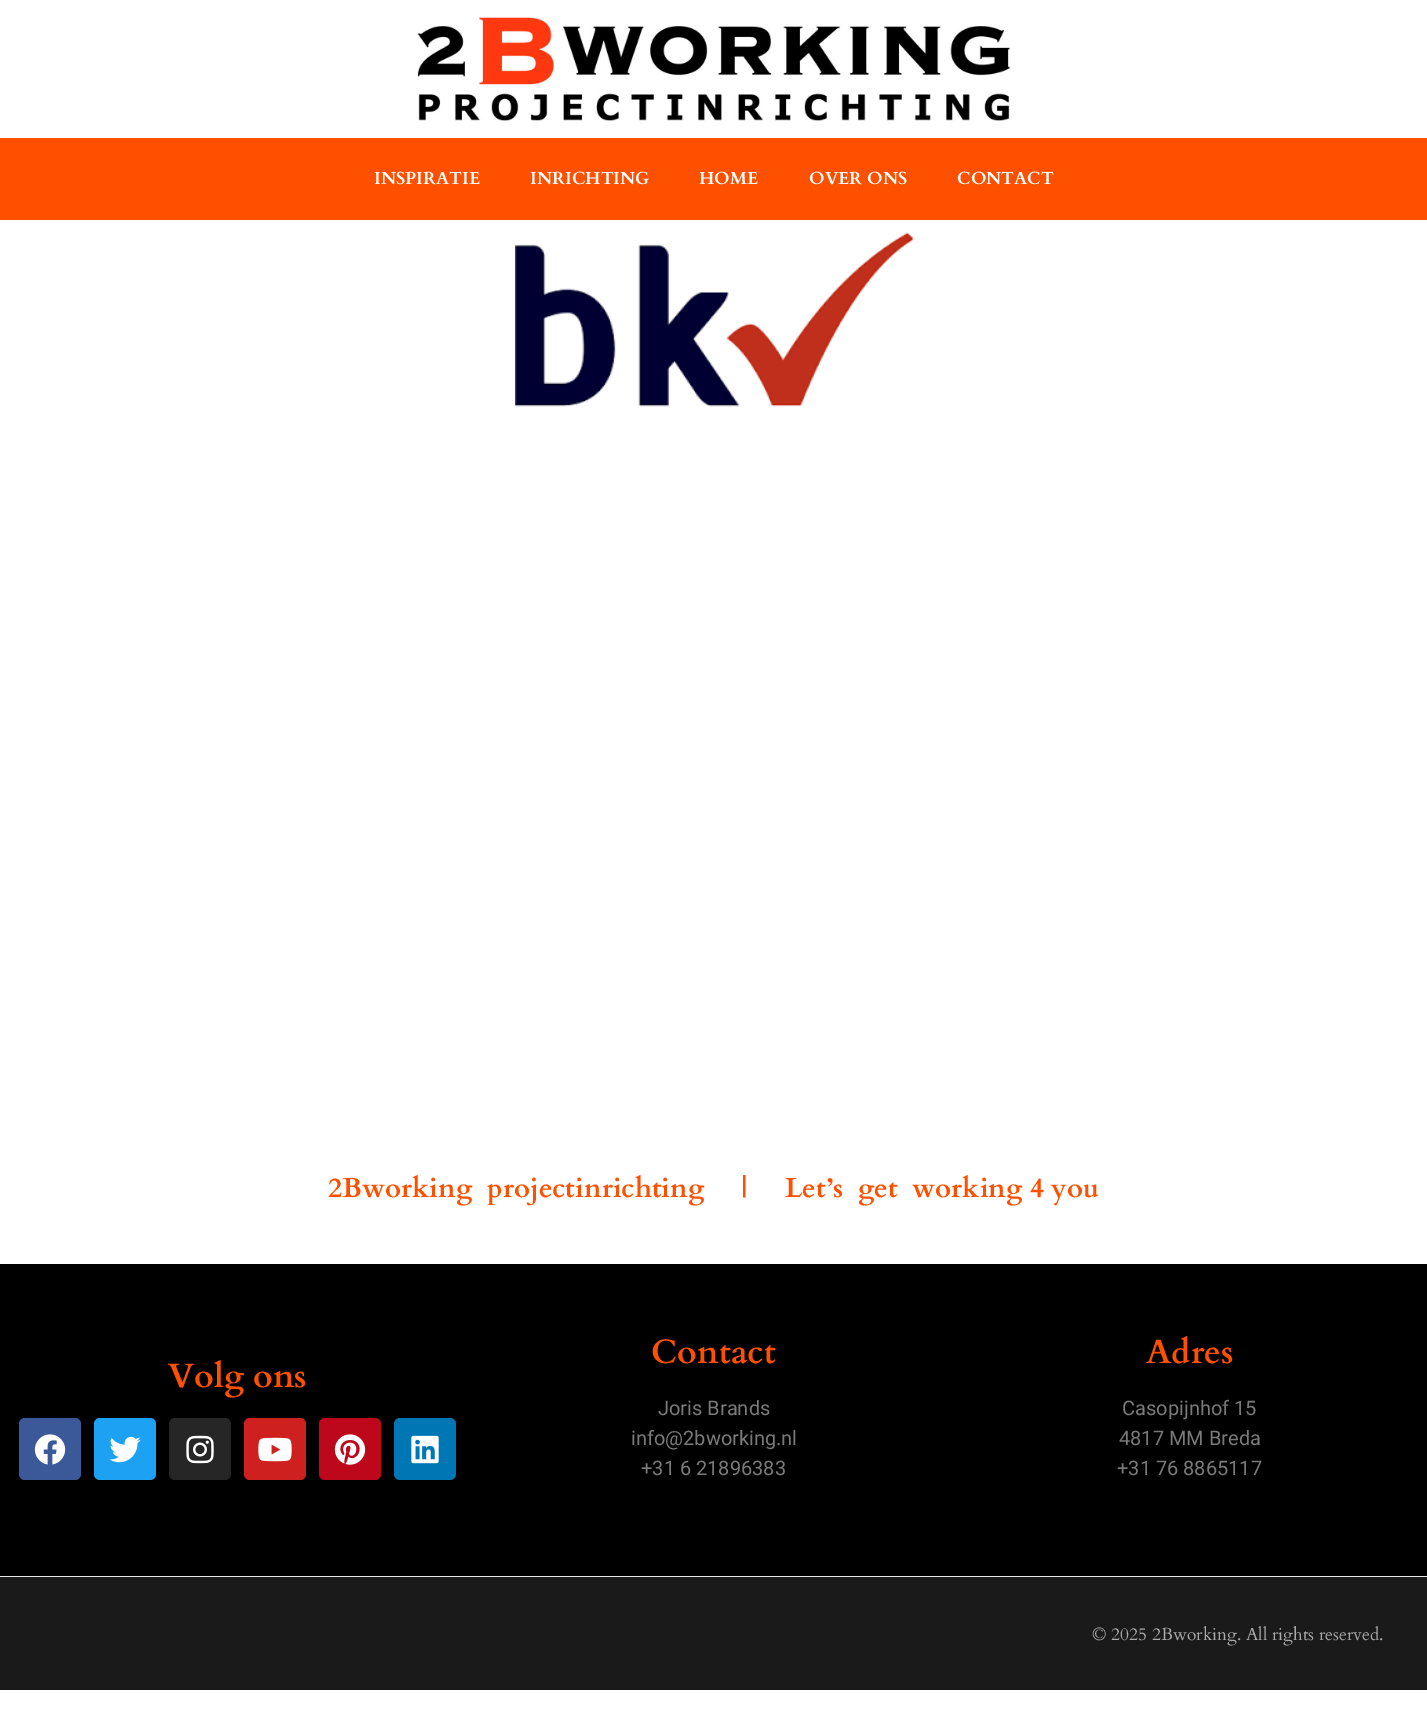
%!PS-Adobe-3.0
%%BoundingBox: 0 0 1427 1732
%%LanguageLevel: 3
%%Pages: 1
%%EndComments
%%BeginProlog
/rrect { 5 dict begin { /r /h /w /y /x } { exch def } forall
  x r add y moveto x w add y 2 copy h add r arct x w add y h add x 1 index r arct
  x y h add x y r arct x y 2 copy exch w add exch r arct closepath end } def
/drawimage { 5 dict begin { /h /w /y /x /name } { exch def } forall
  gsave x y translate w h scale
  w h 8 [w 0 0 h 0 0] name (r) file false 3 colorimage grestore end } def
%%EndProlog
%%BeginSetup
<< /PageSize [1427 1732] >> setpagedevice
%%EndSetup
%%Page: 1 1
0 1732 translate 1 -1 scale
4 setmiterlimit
1 setgray
0 0 1427 1732 rectfill
(images/1.raw) 417 16 594 106 drawimage
1 0.314 0 setrgbcolor
0 138 1427 82 rectfill
(images/2.raw) 515 232 399 175 drawimage
0 setgray
0 1264 1427 312 rectfill
0.231 0.349 0.596 setrgbcolor
19 1418 62 62 6 rrect fill
(images/3.raw) 34 1434 32 31 drawimage
0.114 0.631 0.949 setrgbcolor
94 1418 62 62 6 rrect fill
(images/4.raw) 109 1436 32 27 drawimage
0.149 setgray
169 1418 62 62 6 rrect fill
(images/5.raw) 186 1435 28 29 drawimage
0.804 0.125 0.122 setrgbcolor
244 1418 62 62 6 rrect fill
(images/6.raw) 258 1437 34 25 drawimage
0.741 0.031 0.11 setrgbcolor
319 1418 62 62 6 rrect fill
(images/7.raw) 334 1434 32 31 drawimage
0 0.467 0.71 setrgbcolor
394 1418 62 62 6 rrect fill
(images/8.raw) 411 1435 28 29 drawimage
0.102 setgray
0 1577 1427 113 rectfill
0.918 setgray
0 1576 1427 1 rectfill
/Cardo-Bold [17.5 0 0 -17.5 0 0] selectfont
1 setgray
374 184 moveto (INSPIRATIE) show
530 184 moveto (INRICHTING) show
699 184 moveto (HOME) show
809 184 moveto (OVER ONS) show
957 184 moveto (CONTACT) show
/Cardo-Bold [27.5 0 0 -27.5 0 0] selectfont
1 0.314 0 setrgbcolor
328 1197 moveto (2Bworking  projectinrichting     |     Let’s  get  working 4 you) show
/Cardo-Bold [33.75 0 0 -33.75 0 0] selectfont
168 1387 moveto (Volg ons) show
651 1363 moveto (Contact) show
/Roboto-Regular [20 0 0 -20 0 0] selectfont
0.478 setgray
658 1415 moveto (Joris Brands) show
631 1445 moveto (info@2bworking.nl) show
641 1475 moveto (+31 6 21896383) show
/Cardo-Bold [33.75 0 0 -33.75 0 0] selectfont
1 0.314 0 setrgbcolor
1146 1363 moveto (Adres) show
/Roboto-Regular [20 0 0 -20 0 0] selectfont
0.478 setgray
1122 1415 moveto (Casopijnhof 15) show
1119 1445 moveto (4817 MM Breda) show
1117 1475 moveto (+31 76 8865117) show
/Cardo-Regular [17.5 0 0 -17.5 0 0] selectfont
0.667 setgray
1092 1640 moveto (© 2025 2Bworking. All rights reserved.) show
showpage
%%EOF
